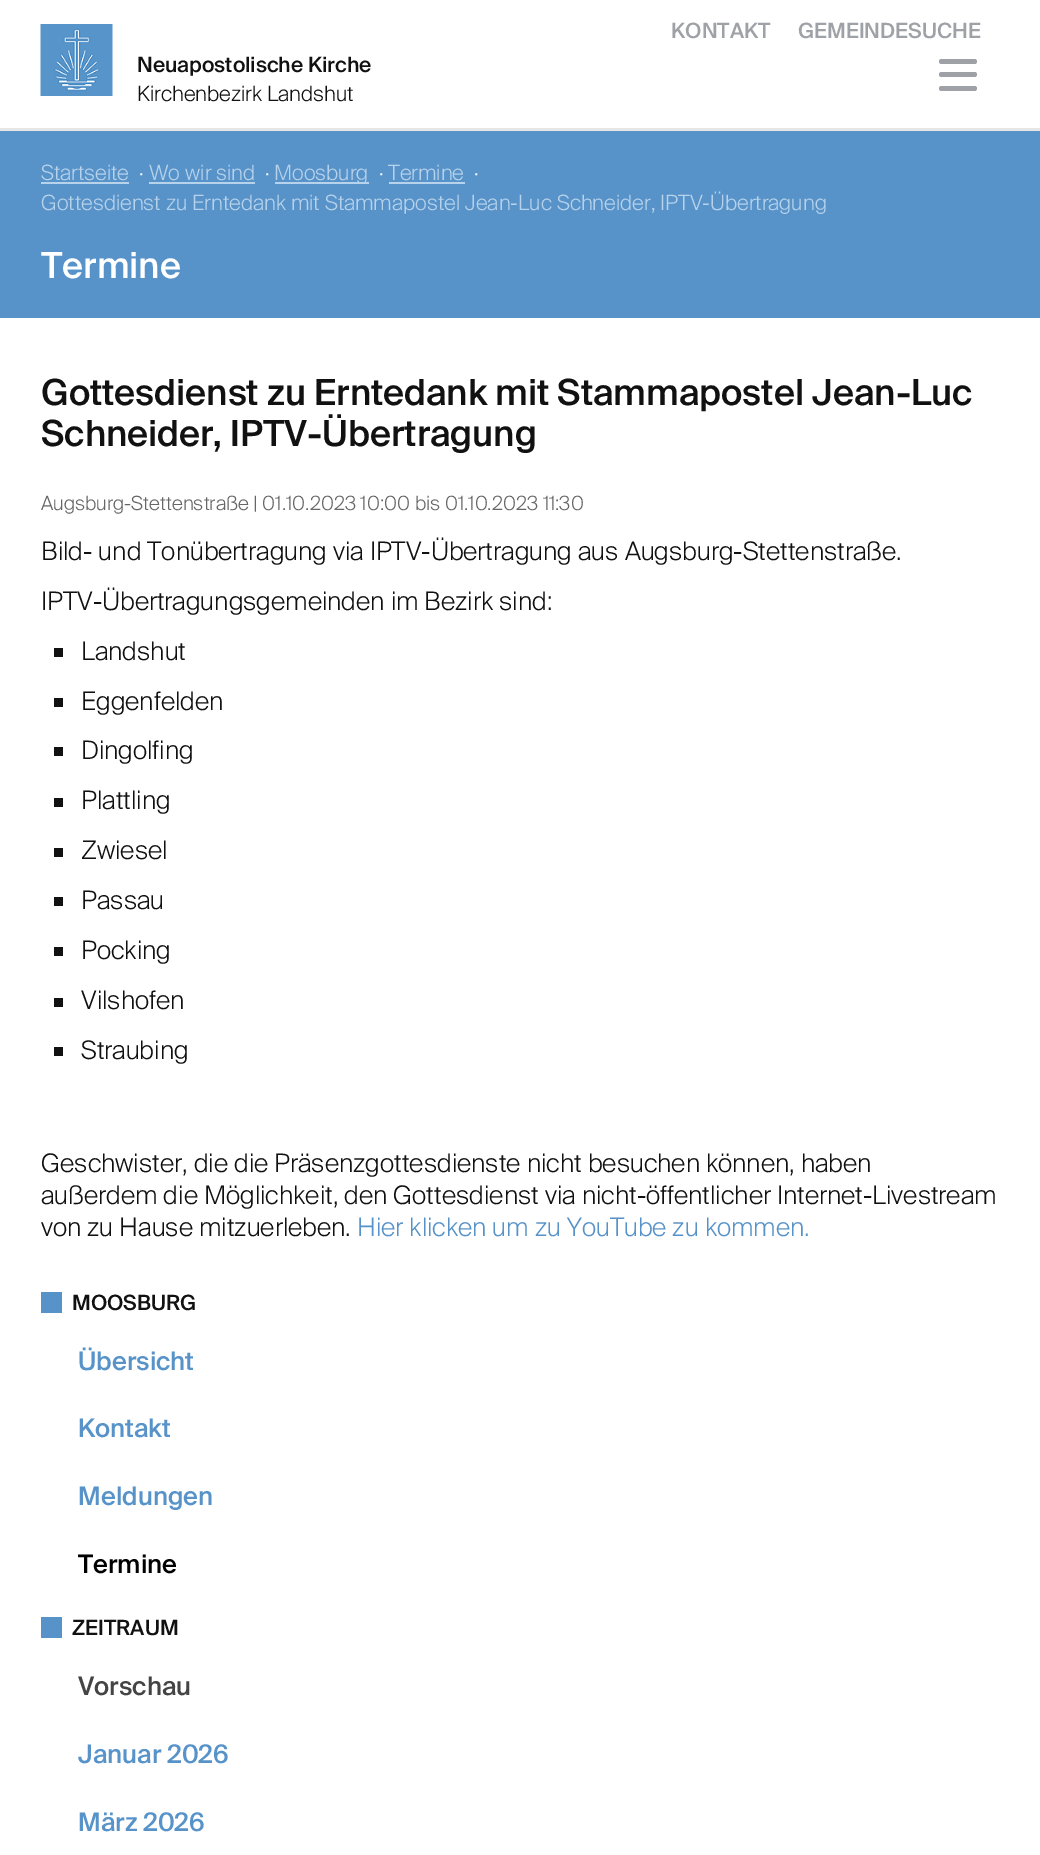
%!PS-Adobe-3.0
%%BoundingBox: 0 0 1040 1855
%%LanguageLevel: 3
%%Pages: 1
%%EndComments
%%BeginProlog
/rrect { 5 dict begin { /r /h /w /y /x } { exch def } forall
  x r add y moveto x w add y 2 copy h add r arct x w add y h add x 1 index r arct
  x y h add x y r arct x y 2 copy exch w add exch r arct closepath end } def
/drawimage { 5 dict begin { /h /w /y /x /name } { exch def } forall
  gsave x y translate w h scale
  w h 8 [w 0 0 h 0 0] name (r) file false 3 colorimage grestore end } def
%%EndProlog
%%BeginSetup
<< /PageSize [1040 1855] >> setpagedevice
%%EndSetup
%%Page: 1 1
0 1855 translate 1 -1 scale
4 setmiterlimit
1 setgray
0 0 1040 1855 rectfill
0.62 0.631 0.651 setrgbcolor
939 59 38 5 2.5 rrect fill
939 72 38 5 2.5 rrect fill
939 86 38 5 2.5 rrect fill
(images/1.raw) 40 24 73 72 drawimage
0.902 setgray
0 128 1040 3 rectfill
0.341 0.576 0.788 setrgbcolor
0 131 1040 187 rectfill
0.718 0.824 0.922 setrgbcolor
41 182 88 2 rectfill
149 182 106 2 rectfill
275 182 94 2 rectfill
389 182 76 2 rectfill
0.067 setgray
54 648 9 9 rectfill
54 698 9 9 rectfill
54 747 9 9 rectfill
54 798 9 9 rectfill
54 848 9 9 rectfill
54 897 9 9 rectfill
54 947 9 9 rectfill
54 998 9 9 rectfill
54 1047 9 9 rectfill
0.341 0.576 0.788 setrgbcolor
41 1292 21 21 rectfill
41 1617 21 21 rectfill
/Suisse-Medium [21 0 0 -21 0 0] selectfont
0.62 0.631 0.651 setrgbcolor
671 38 moveto (KONTAKT) show
798 38 moveto (GEMEINDESUCHE) show
0.067 setgray
137 72 moveto (Neuapostolische Kirche) show
/Suisse-Light [21 0 0 -21 0 0] selectfont
137 101 moveto (Kirchenbezirk Landshut) show
0.718 0.824 0.922 setrgbcolor
41 180 moveto (Startseite) show
1 setgray
139 180 moveto (·) show
0.718 0.824 0.922 setrgbcolor
149 180 moveto (Wo wir sind) show
1 setgray
265 180 moveto (·) show
0.718 0.824 0.922 setrgbcolor
274 180 moveto (Moosburg) show
1 setgray
379 180 moveto (·) show
0.718 0.824 0.922 setrgbcolor
388 180 moveto (Termine) show
1 setgray
474 180 moveto (·) show
0.718 0.824 0.922 setrgbcolor
41 210 moveto (Gottesdienst zu Erntedank mit Stammapostel Jean-Luc Schneider, IPTV-Übertragung) show
/Suisse-Medium [36 0 0 -36 0 0] selectfont
1 setgray
41 278 moveto (Termine) show
0.067 setgray
41 405 moveto (Gottesdienst zu Erntedank mit Stammapostel Jean-Luc) show
41 446 moveto (Schneider, IPTV-Übertragung) show
/Suisse-Light [19.5 0 0 -19.5 0 0] selectfont
0.4 setgray
41 510 moveto (Augsburg-Stettenstraße | 01.10.2023 10:00 bis 01.10.2023 11:30) show
/Suisse-Light [25.5 0 0 -25.5 0 0] selectfont
0.067 setgray
41 560 moveto (Bild- und Tonübertragung via IPTV-Übertragung aus Augsburg-Stettenstraße.) show
41 610 moveto (IPTV-Übertragungsgemeinden im Bezirk sind:) show
81 660 moveto (Landshut) show
81 710 moveto (Eggenfelden) show
81 759 moveto (Dingolfing) show
81 809 moveto (Plattling) show
81 859 moveto (Zwiesel) show
81 909 moveto (Passau) show
81 959 moveto (Pocking) show
81 1009 moveto (Vilshofen) show
81 1059 moveto (Straubing) show
41 1172 moveto (Geschwister, die die Präsenzgottesdienste nicht besuchen können, haben) show
41 1204 moveto (außerdem die Möglichkeit, den Gottesdienst via nicht-öffentlicher Internet-Livestream) show
41 1236 moveto (von zu Hause mitzuerleben.) show
0.341 0.576 0.788 setrgbcolor
357 1236 moveto (Hier klicken um zu YouTube zu kommen.) show
/Suisse-Medium [21 0 0 -21 0 0] selectfont
0.067 setgray
72 1310 moveto (MOOSBURG) show
/Suisse-Medium [25.5 0 0 -25.5 0 0] selectfont
0.341 0.576 0.788 setrgbcolor
78 1370 moveto (Übersicht) show
78 1437 moveto (Kontakt) show
78 1505 moveto (Meldungen) show
0 setgray
78 1573 moveto (Termine) show
/Suisse-Medium [21 0 0 -21 0 0] selectfont
0.067 setgray
72 1635 moveto (ZEITRAUM) show
/Suisse-Medium [25.5 0 0 -25.5 0 0] selectfont
0.267 setgray
78 1695 moveto (Vorschau) show
0.341 0.576 0.788 setrgbcolor
78 1763 moveto (Januar 2026) show
78 1831 moveto (März 2026) show
showpage
%%EOF
